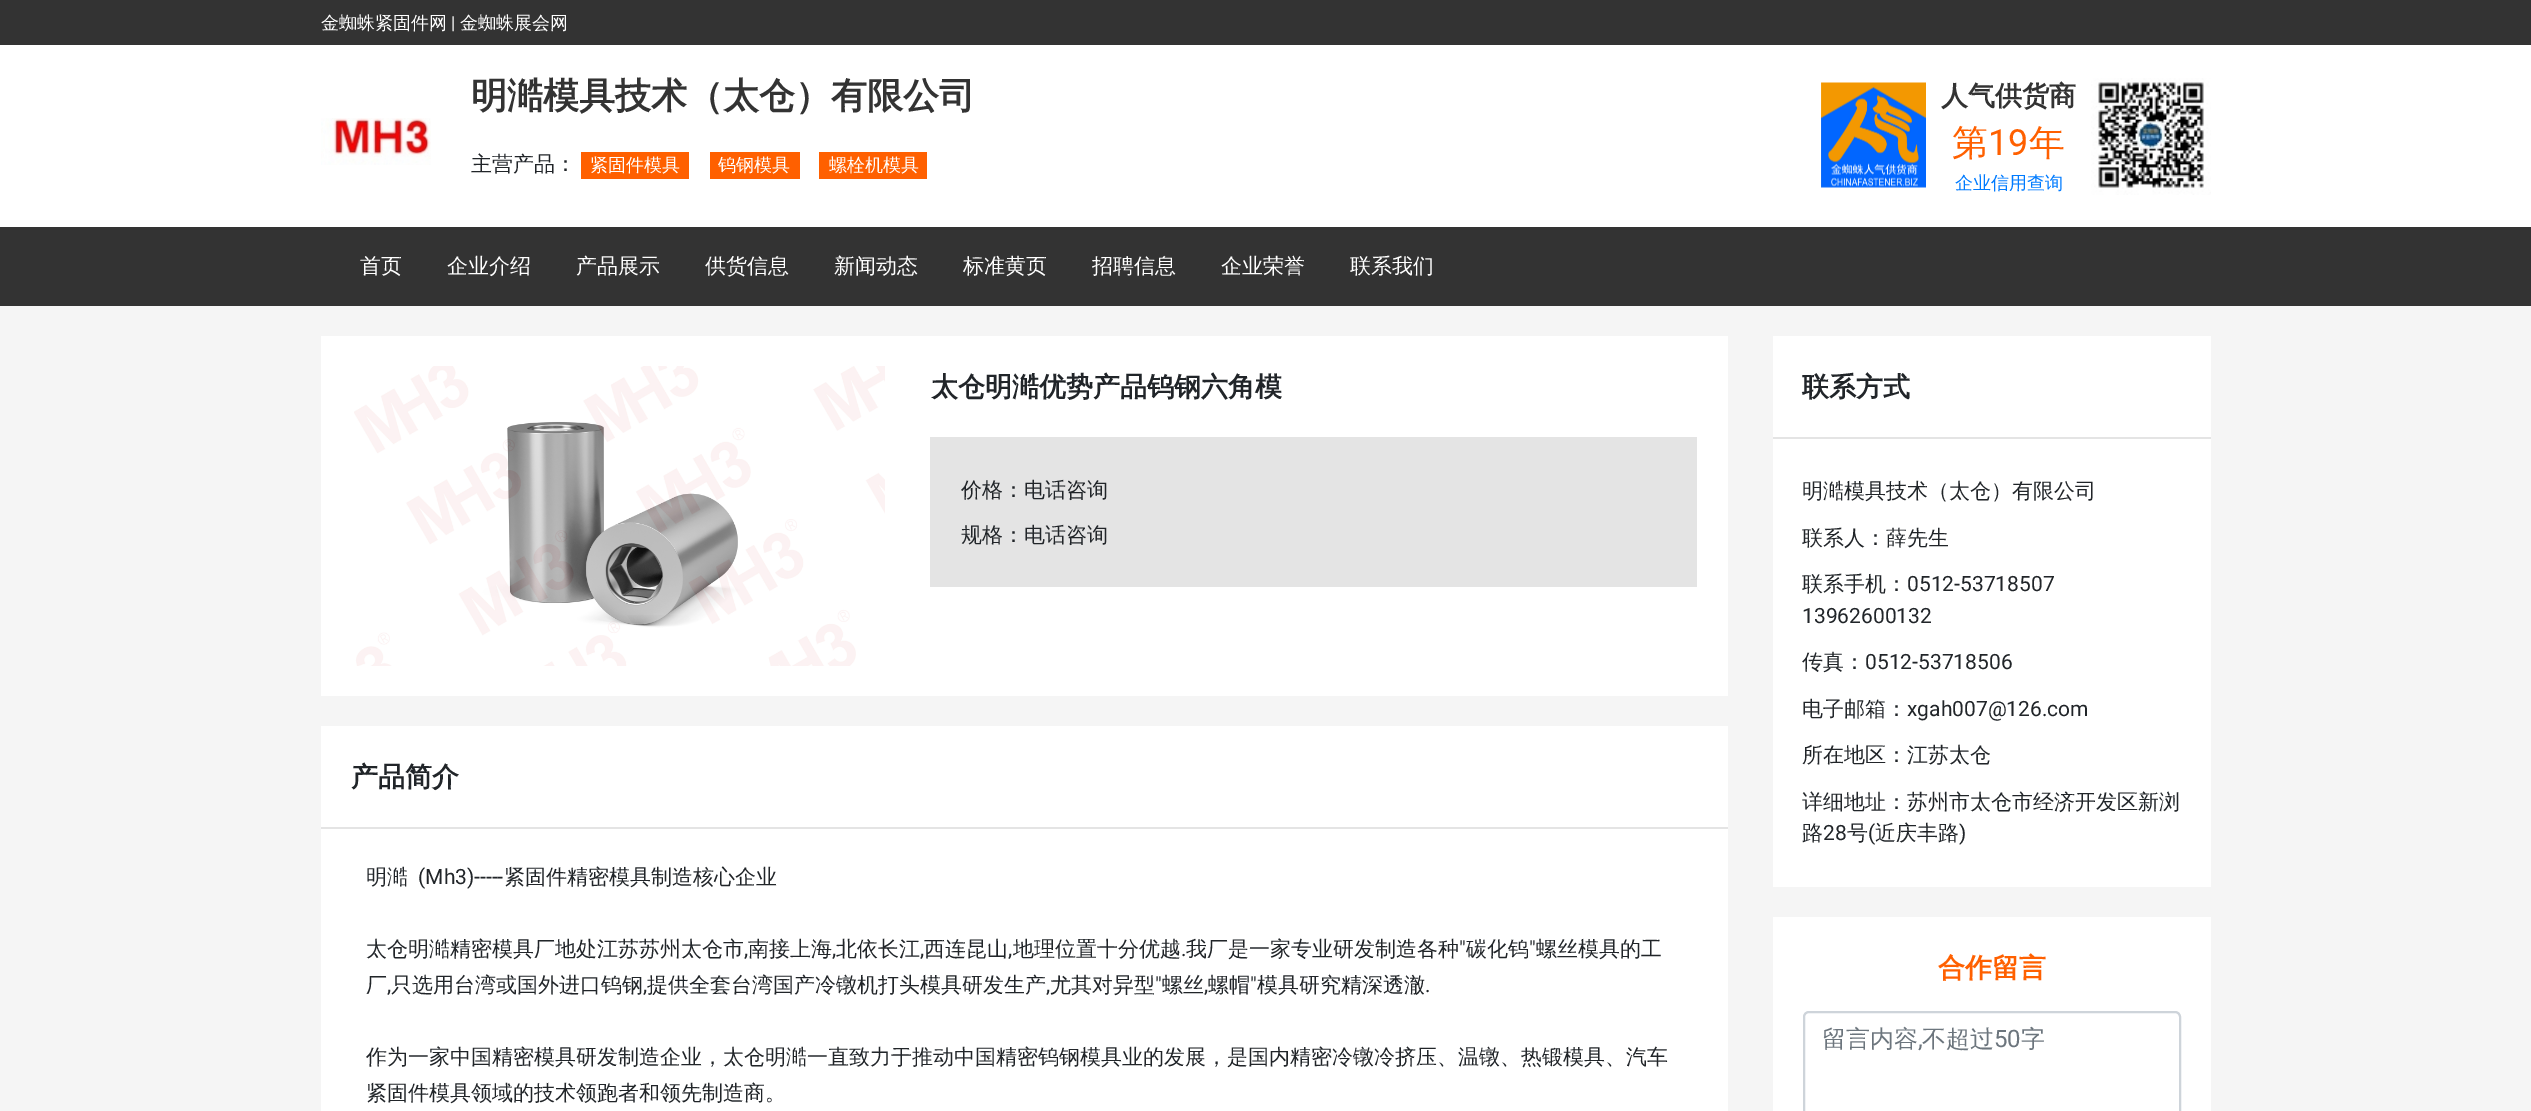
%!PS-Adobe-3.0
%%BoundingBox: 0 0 2531 1111
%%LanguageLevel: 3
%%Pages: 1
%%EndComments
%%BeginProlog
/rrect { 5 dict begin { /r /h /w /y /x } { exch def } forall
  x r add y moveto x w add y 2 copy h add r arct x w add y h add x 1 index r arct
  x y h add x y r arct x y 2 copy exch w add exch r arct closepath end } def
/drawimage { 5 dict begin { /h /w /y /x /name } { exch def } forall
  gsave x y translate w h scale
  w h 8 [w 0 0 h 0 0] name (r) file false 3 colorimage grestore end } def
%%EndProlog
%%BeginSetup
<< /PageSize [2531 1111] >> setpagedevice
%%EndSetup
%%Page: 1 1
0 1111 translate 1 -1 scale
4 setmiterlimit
1 setgray
0 0 2531 1111 rectfill
0.2 setgray
0 0 2531 45 rectfill
(images/1.raw) 321 118 110 47 drawimage
1 0.376 0 setrgbcolor
581 152 108 27 rectfill
710 152 90 27 rectfill
819 152 108 27 rectfill
(images/2.raw) 1821 82 105 106 drawimage
(images/3.raw) 2091 78 120 117 drawimage
0.2 setgray
0 227 2531 79 rectfill
0.961 setgray
0 306 2531 805 rectfill
1 setgray
321 336 1407 360 rectfill
(images/4.raw) 354 366 531 300 drawimage
0.894 setgray
930 437 767 150 rectfill
1 setgray
321 726 1407 385 rectfill
0.894 setgray
321 827 1407 2 rectfill
1 setgray
1773 336 438 551 rectfill
0.894 setgray
1773 437 438 2 rectfill
1 setgray
1773 917 438 194 rectfill
0.808 0.831 0.855 setrgbcolor
2 setlinewidth
1804 1012 376 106 5 rrect stroke
/WenQuanYiZenHei-Medium [18 0 0 -18 0 0] selectfont
1 setgray
321 29 moveto (金蜘蛛紧固件网) show
/Roboto-Regular [18 0 0 -18 0 0] selectfont
451 29 moveto (|) show
/WenQuanYiZenHei-Medium [18 0 0 -18 0 0] selectfont
460 29 moveto (金蜘蛛展会网) show
/WenQuanYiZenHei-Bold [36 0 0 -36 0 0] selectfont
0.2 setgray
471 108 moveto (明澔模具技术（太仓）有限公司) show
/WenQuanYiZenHei-Medium [21 0 0 -21 0 0] selectfont
0.129 0.145 0.161 setrgbcolor
471 171 moveto (主营产品：) show
/WenQuanYiZenHei-Medium [18 0 0 -18 0 0] selectfont
1 setgray
590 171 moveto (紧固件模具) show
718 171 moveto (钨钢模具) show
829 171 moveto (螺栓机模具) show
/WenQuanYiZenHei-Bold [27 0 0 -27 0 0] selectfont
0.2 setgray
1941 105 moveto (人气供货商) show
/WenQuanYiZenHei-Medium [36 0 0 -36 0 0] selectfont
1 0.376 0 setrgbcolor
1952 155 moveto (第) show
/Roboto-Regular [36 0 0 -36 0 0] selectfont
1988 155 moveto (19) show
/WenQuanYiZenHei-Medium [36 0 0 -36 0 0] selectfont
2029 155 moveto (年) show
/WenQuanYiZenHei-Medium [18 0 0 -18 0 0] selectfont
0 0.482 1 setrgbcolor
1955 189 moveto (企业信用查询) show
/WenQuanYiZenHei-Medium [21 0 0 -21 0 0] selectfont
1 setgray
360 273 moveto (首页) show
447 273 moveto (企业介绍) show
576 273 moveto (产品展示) show
705 273 moveto (供货信息) show
834 273 moveto (新闻动态) show
963 273 moveto (标准黄页) show
1092 273 moveto (招聘信息) show
1221 273 moveto (企业荣誉) show
1350 273 moveto (联系我们) show
/WenQuanYiZenHei-Bold [27 0 0 -27 0 0] selectfont
0.129 0.145 0.161 setrgbcolor
931 396 moveto (太仓明澔优势产品钨钢六角模) show
/WenQuanYiZenHei-Medium [21 0 0 -21 0 0] selectfont
961 497 moveto (价格：电话咨询) show
961 542 moveto (规格：电话咨询) show
/WenQuanYiZenHei-Bold [27 0 0 -27 0 0] selectfont
351 786 moveto (产品简介) show
/WenQuanYiZenHei-Medium [21 0 0 -21 0 0] selectfont
366 884 moveto (明澔) show
/Roboto-Regular [21 0 0 -21 0 0] selectfont
418 884 moveto (\(Mh3\)-----) show
/WenQuanYiZenHei-Medium [21 0 0 -21 0 0] selectfont
504 884 moveto (紧固件精密模具制造核心企业) show
366 956 moveto (太仓明澔精密模具厂地处江苏苏州太仓市) show
748 956 moveto (南接上海) show
836 956 moveto (北依长江) show
924 956 moveto (西连昆山) show
1013 956 moveto (地理位置十分优越) show
1186 956 moveto (我厂是一家专业研发制造各种) show
/Roboto-Regular [21 0 0 -21 0 0] selectfont
1459 956 moveto (") show
/WenQuanYiZenHei-Medium [21 0 0 -21 0 0] selectfont
1466 956 moveto (碳化钨) show
/Roboto-Regular [21 0 0 -21 0 0] selectfont
1529 956 moveto (") show
/WenQuanYiZenHei-Medium [21 0 0 -21 0 0] selectfont
1536 956 moveto (螺丝模具的工) show
/Roboto-Regular [21 0 0 -21 0 0] selectfont
744 956 moveto (,) show
832 956 moveto (,) show
920 956 moveto (,) show
1008 956 moveto (,) show
1181 956 moveto (.) show
/WenQuanYiZenHei-Medium [21 0 0 -21 0 0] selectfont
366 992 moveto (厂) show
391 992 moveto (只选用台湾或国外进口钨钢) show
647 992 moveto (提供全套台湾国产冷镦机打头模具研发生产) show
1050 992 moveto (尤其对异型) show
/Roboto-Regular [21 0 0 -21 0 0] selectfont
1155 992 moveto (") show
/WenQuanYiZenHei-Medium [21 0 0 -21 0 0] selectfont
1162 992 moveto (螺丝) show
1208 992 moveto (螺帽) show
/Roboto-Regular [21 0 0 -21 0 0] selectfont
1250 992 moveto (") show
/WenQuanYiZenHei-Medium [21 0 0 -21 0 0] selectfont
1257 992 moveto (模具研究精深透澈) show
/Roboto-Regular [21 0 0 -21 0 0] selectfont
387 992 moveto (,) show
643 992 moveto (,) show
1046 992 moveto (,) show
1204 992 moveto (,) show
1425 992 moveto (.) show
/WenQuanYiZenHei-Medium [21 0 0 -21 0 0] selectfont
366 1064 moveto (作为一家中国精密模具研发制造企业，太仓明澔一直致力于推动中国精密钨钢模具业的发展，是国内精密冷镦冷挤压、温镦、热锻模具、汽车) show
366 1100 moveto (紧固件模具领域的技术领跑者和领先制造商。) show
/WenQuanYiZenHei-Bold [27 0 0 -27 0 0] selectfont
1802 396 moveto (联系方式) show
/WenQuanYiZenHei-Medium [21 0 0 -21 0 0] selectfont
1802 498 moveto (明澔模具技术（太仓）有限公司) show
1802 545 moveto (联系人：薛先生) show
1802 591 moveto (联系手机：) show
/Roboto-Regular [21 0 0 -21 0 0] selectfont
1907 591 moveto (0512-53718507) show
1802 623 moveto (13962600132) show
/WenQuanYiZenHei-Medium [21 0 0 -21 0 0] selectfont
1802 669 moveto (传真：) show
/Roboto-Regular [21 0 0 -21 0 0] selectfont
1865 669 moveto (0512-53718506) show
/WenQuanYiZenHei-Medium [21 0 0 -21 0 0] selectfont
1802 716 moveto (电子邮箱：) show
/Roboto-Regular [21 0 0 -21 0 0] selectfont
1907 716 moveto (xgah007@126.com) show
/WenQuanYiZenHei-Medium [21 0 0 -21 0 0] selectfont
1802 762 moveto (所在地区：江苏太仓) show
1802 809 moveto (详细地址：苏州市太仓市经济开发区新浏) show
1802 840 moveto (路) show
/Roboto-Regular [21 0 0 -21 0 0] selectfont
1823 840 moveto (28) show
/WenQuanYiZenHei-Medium [21 0 0 -21 0 0] selectfont
1847 840 moveto (号) show
/Roboto-Regular [21 0 0 -21 0 0] selectfont
1868 840 moveto (\() show
/WenQuanYiZenHei-Medium [21 0 0 -21 0 0] selectfont
1875 840 moveto (近庆丰路) show
/Roboto-Regular [21 0 0 -21 0 0] selectfont
1959 840 moveto (\)) show
/WenQuanYiZenHei-Bold [27 0 0 -27 0 0] selectfont
1 0.376 0 setrgbcolor
1938 977 moveto (合作留言) show
/WenQuanYiZenHei-Medium [24 0 0 -24 0 0] selectfont
0.424 0.459 0.49 setrgbcolor
1822 1047 moveto (留言内容) show
/Roboto-Regular [24 0 0 -24 0 0] selectfont
1918 1047 moveto (,) show
/WenQuanYiZenHei-Medium [24 0 0 -24 0 0] selectfont
1922 1047 moveto (不超过) show
/Roboto-Regular [24 0 0 -24 0 0] selectfont
1994 1047 moveto (50) show
/WenQuanYiZenHei-Medium [24 0 0 -24 0 0] selectfont
2021 1047 moveto (字) show
showpage
%%EOF
